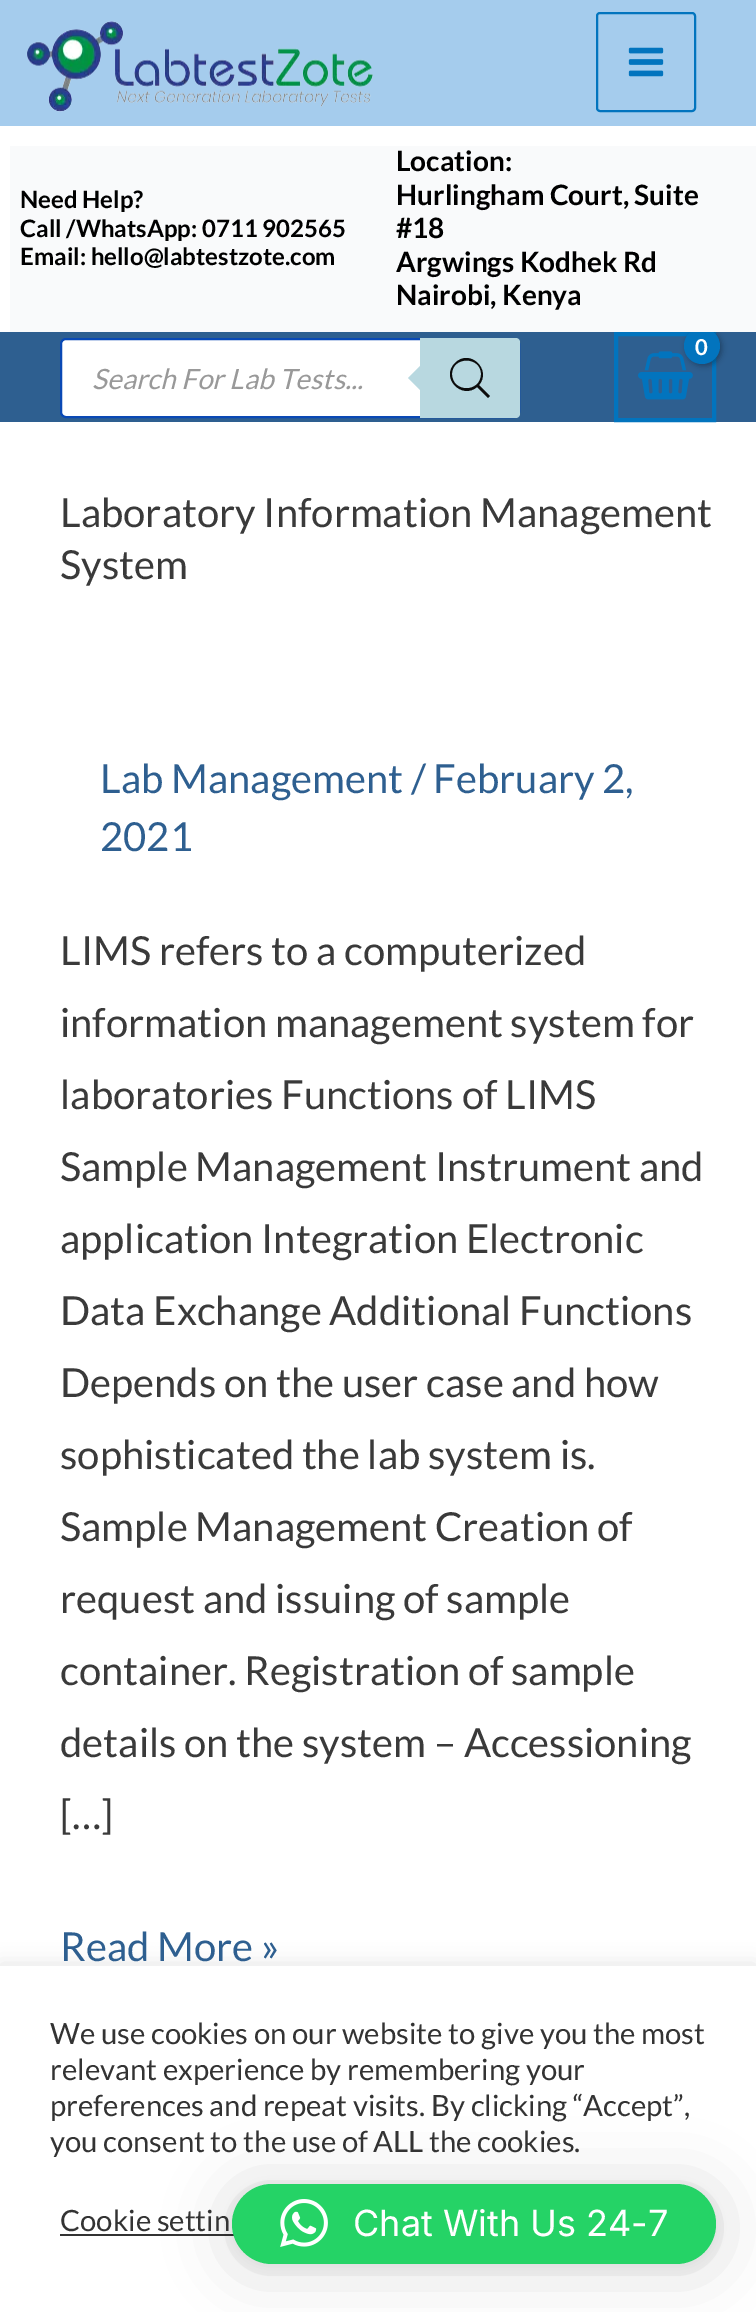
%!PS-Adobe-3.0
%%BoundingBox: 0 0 756 2312
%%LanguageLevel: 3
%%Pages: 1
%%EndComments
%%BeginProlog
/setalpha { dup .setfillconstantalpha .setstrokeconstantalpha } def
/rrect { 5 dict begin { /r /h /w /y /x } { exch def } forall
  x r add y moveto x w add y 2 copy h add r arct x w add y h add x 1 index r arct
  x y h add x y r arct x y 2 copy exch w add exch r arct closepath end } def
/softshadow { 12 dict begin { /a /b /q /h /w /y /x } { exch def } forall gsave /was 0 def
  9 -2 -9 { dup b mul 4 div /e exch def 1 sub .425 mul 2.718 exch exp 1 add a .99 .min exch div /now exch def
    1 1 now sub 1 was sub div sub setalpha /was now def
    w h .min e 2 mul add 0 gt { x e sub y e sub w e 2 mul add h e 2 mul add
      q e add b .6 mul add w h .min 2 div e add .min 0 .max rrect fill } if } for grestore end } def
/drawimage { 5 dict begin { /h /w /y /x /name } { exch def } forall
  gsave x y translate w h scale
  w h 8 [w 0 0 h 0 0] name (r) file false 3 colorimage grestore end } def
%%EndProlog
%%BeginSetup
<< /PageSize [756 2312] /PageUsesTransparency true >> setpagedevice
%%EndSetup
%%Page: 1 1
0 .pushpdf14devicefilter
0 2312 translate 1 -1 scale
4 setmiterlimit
1 setgray
0 0 756 2312 rectfill
0.647 0.8 0.929 setrgbcolor
0 0 756 126 rectfill
(images/1.raw) 26 21 347 91 drawimage
0.008 0.455 0.745 setrgbcolor
2 setlinewidth
597 13 98 98 3 rrect stroke
(images/2.raw) 628 47 36 30 drawimage
0.18 0.373 0.565 setrgbcolor
0 332 756 90 rectfill
0.008 0.455 0.745 setrgbcolor
4 setlinewidth
616 334 98 86 rectstroke
(images/3.raw) 638 351 55 49 drawimage
0 setgray
686 330 36 36 18 3 0.3 softshadow
0.008 0.455 0.745 setrgbcolor
newpath 702 346 18 0 360 arc closepath fill
0.976 0.98 0.984 setrgbcolor
10 146 746 186 rectfill
1 setgray
61 339 458 78 5 rrect gsave fill grestore
0.039 0.286 0.71 setrgbcolor
2 setlinewidth
stroke
0.722 0.847 0.878 setrgbcolor
newpath 420 338 moveto 516 338 lineto 518 338 520 340 520 342 curveto 520 414 lineto 520 416 518 418 516 418 curveto 420 418 lineto closepath fill
newpath 424 362 moveto 424 394 lineto 408 378 lineto closepath fill
0.047 setgray
newpath 490 396 moveto 479 385 lineto 492 370 470 348 455 363 curveto 440 378 462 400 477 387 curveto 488 398 lineto closepath 452 374 moveto 452 356 481 356 481 374 curveto 481 393 452 393 452 374 curveto closepath fill
0.675 0.671 0.671 setrgbcolor
0 1964 756 346 0 10 0.3 softshadow
1 setgray
0 1966 756 346 rectfill
0.2 setgray
60 2234 174 2 rectfill
0 setgray
232 2188 484 80 40 32 0.16 softshadow
232 2186 484 80 40 6 0.06 softshadow
0.145 0.827 0.4 setrgbcolor
232 2184 484 80 40 rrect fill
(images/4.raw) 280 2199 48 48 drawimage
/Lato-Bold [24 0 0 -24 0 0] selectfont
0 setgray
20 208 moveto (Need Help?) show
20 237 moveto (Call /WhatsApp: 0711 902565) show
20 265 moveto (Email: hello@labtestzote.com) show
/Lato-Bold [28 0 0 -28 0 0] selectfont
396 171 moveto (Location:) show
396 205 moveto (Hurlingham Court, Suite) show
396 238 moveto (#18) show
396 272 moveto (Argwings Kodhek Rd) show
396 305 moveto (Nairobi, Kenya) show
/Lato-Bold [22 0 0 -22 0 0] selectfont
1 setgray
695 355 moveto -1 0 (0) ashow
/Lato-Italic [28 0 0 -28 0 0] selectfont
0.6 setgray
92 389 moveto (Search For Lab Tests...) show
/Lato-Regular [40 0 0 -40 0 0] selectfont
0.227 setgray
60 527 moveto (Laboratory Information Management) show
60 579 moveto (System) show
0.18 0.373 0.565 setrgbcolor
100 793 moveto (Lab Management / February 2,) show
100 851 moveto (2021) show
0.227 setgray
60 965 moveto (LIMS refers to a computerized) show
60 1037 moveto (information management system for) show
60 1109 moveto (laboratories Functions of LIMS) show
60 1181 moveto (Sample Management Instrument and) show
60 1253 moveto (application Integration Electronic) show
60 1325 moveto (Data Exchange Additional Functions) show
60 1397 moveto (Depends on the user case and how) show
60 1469 moveto (sophisticated the lab system is.) show
60 1541 moveto (Sample Management Creation of) show
60 1613 moveto (request and issuing of sample) show
60 1685 moveto (container. Registration of sample) show
60 1757 moveto (details on the system – Accessioning) show
60 1829 moveto ([…]) show
0.18 0.373 0.565 setrgbcolor
60 1961 moveto (Read More ») show
/Lato-Regular [29.3 0 0 -29.3 0 0] selectfont
0.2 setgray
50 2044 moveto (We use cookies on our website to give you the most) show
50 2080 moveto (relevant experience by remembering your) show
50 2116 moveto (preferences and repeat visits. By clicking “Accept”,) show
50 2152 moveto (you consent to the use of ALL the cookies.) show
60 2231 moveto (Cookie settin) show
/Inter-Regular [36 0 0 -36 0 0] selectfont
1 setgray
353 2236 moveto (Chat With Us 24-7) show
.poppdf14devicefilter showpage
%%EOF
